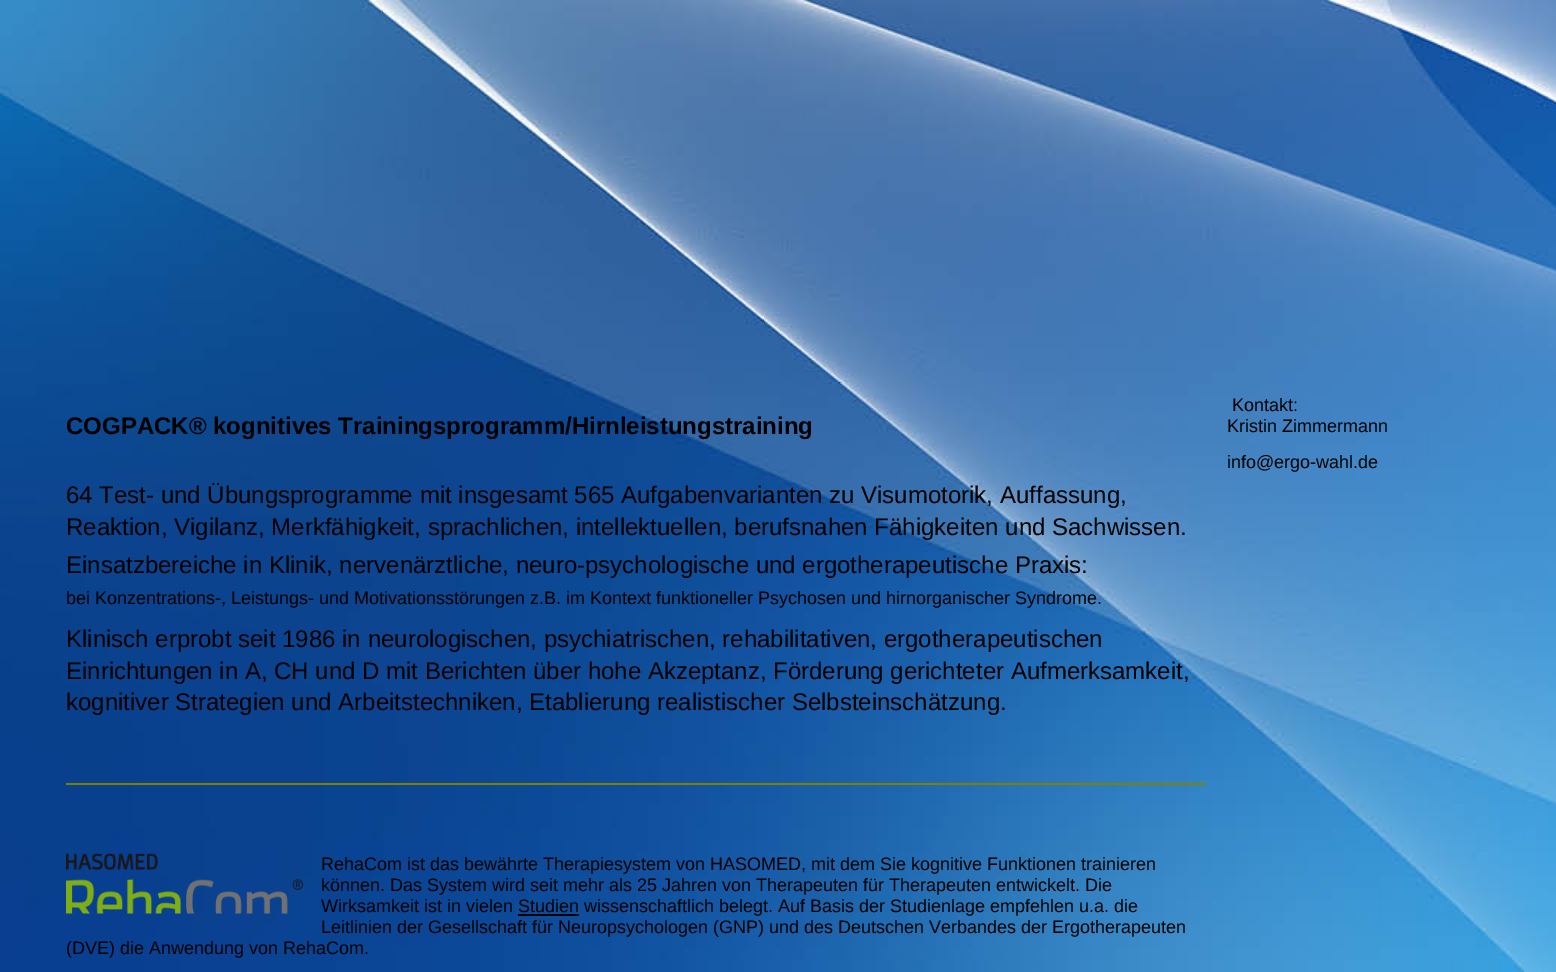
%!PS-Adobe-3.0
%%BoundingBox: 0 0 1556 972
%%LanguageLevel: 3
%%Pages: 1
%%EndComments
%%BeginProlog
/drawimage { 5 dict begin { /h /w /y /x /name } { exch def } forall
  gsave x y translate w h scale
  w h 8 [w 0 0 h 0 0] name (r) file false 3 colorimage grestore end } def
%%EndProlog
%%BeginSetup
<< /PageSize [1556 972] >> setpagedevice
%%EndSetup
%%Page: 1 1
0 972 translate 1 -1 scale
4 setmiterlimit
1 setgray
0 0 1556 972 rectfill
(images/1.raw) 0 0 1556 972 drawimage
0.502 0.502 0 setrgbcolor
66 783 1140 2 rectfill
(images/2.raw) 66 853 237 61 drawimage
0 setgray
518 914 61 2 rectfill
/LiberationSans-Bold [24 0 0 -24 0 0] selectfont
66 434 moveto (COGPACK® kognitives Trainingsprogramm/Hirnleistungstraining) show
/LiberationSans-Regular [24 0 0 -24 0 0] selectfont
66 503 moveto (64 Test- und Übungsprogramme mit insgesamt 565 Aufgabenvarianten zu Visumotorik, Auffassung,) show
66 535 moveto (Reaktion, Vigilanz, Merkfähigkeit, sprachlichen, intellektuellen, berufsnahen Fähigkeiten und Sachwissen.) show
66 573 moveto (Einsatzbereiche in Klinik, nervenärztliche, neuro-psychologische und ergotherapeutische Praxis:) show
/LiberationSans-Regular [18 0 0 -18 0 0] selectfont
66 604 moveto (bei Konzentrations-, Leistungs- und Motivationsstörungen z.B. im Kontext funktioneller Psychosen und hirnorganischer Syndrome.) show
/LiberationSans-Regular [24 0 0 -24 0 0] selectfont
66 647 moveto (Klinisch erprobt seit 1986 in neurologischen, psychiatrischen, rehabilitativen, ergotherapeutischen) show
66 679 moveto (Einrichtungen in A, CH und D mit Berichten über hohe Akzeptanz, Förderung gerichteter Aufmerksamkeit,) show
66 710 moveto (kognitiver Strategien und Arbeitstechniken, Etablierung realistischer Selbsteinschätzung.) show
/LiberationSans-Regular [18 0 0 -18 0 0] selectfont
321 870 moveto (RehaCom ist das bewährte Therapiesystem von HASOMED, mit dem Sie kognitive Funktionen trainieren) show
321 891 moveto (können. Das System wird seit mehr als 25 Jahren von Therapeuten für Therapeuten entwickelt. Die) show
321 912 moveto (Wirksamkeit ist in vielen Studien wissenschaftlich belegt. Auf Basis der Studienlage empfehlen u.a. die) show
321 933 moveto (Leitlinien der Gesellschaft für Neuropsychologen \(GNP\) und des Deutschen Verbandes der Ergotherapeuten) show
66 954 moveto (\(DVE\) die Anwendung von RehaCom.) show
1232 411 moveto (Kontakt:) show
1227 432 moveto (Kristin Zimmermann) show
1227 468 moveto (info@ergo-wahl.de) show
showpage
%%EOF
